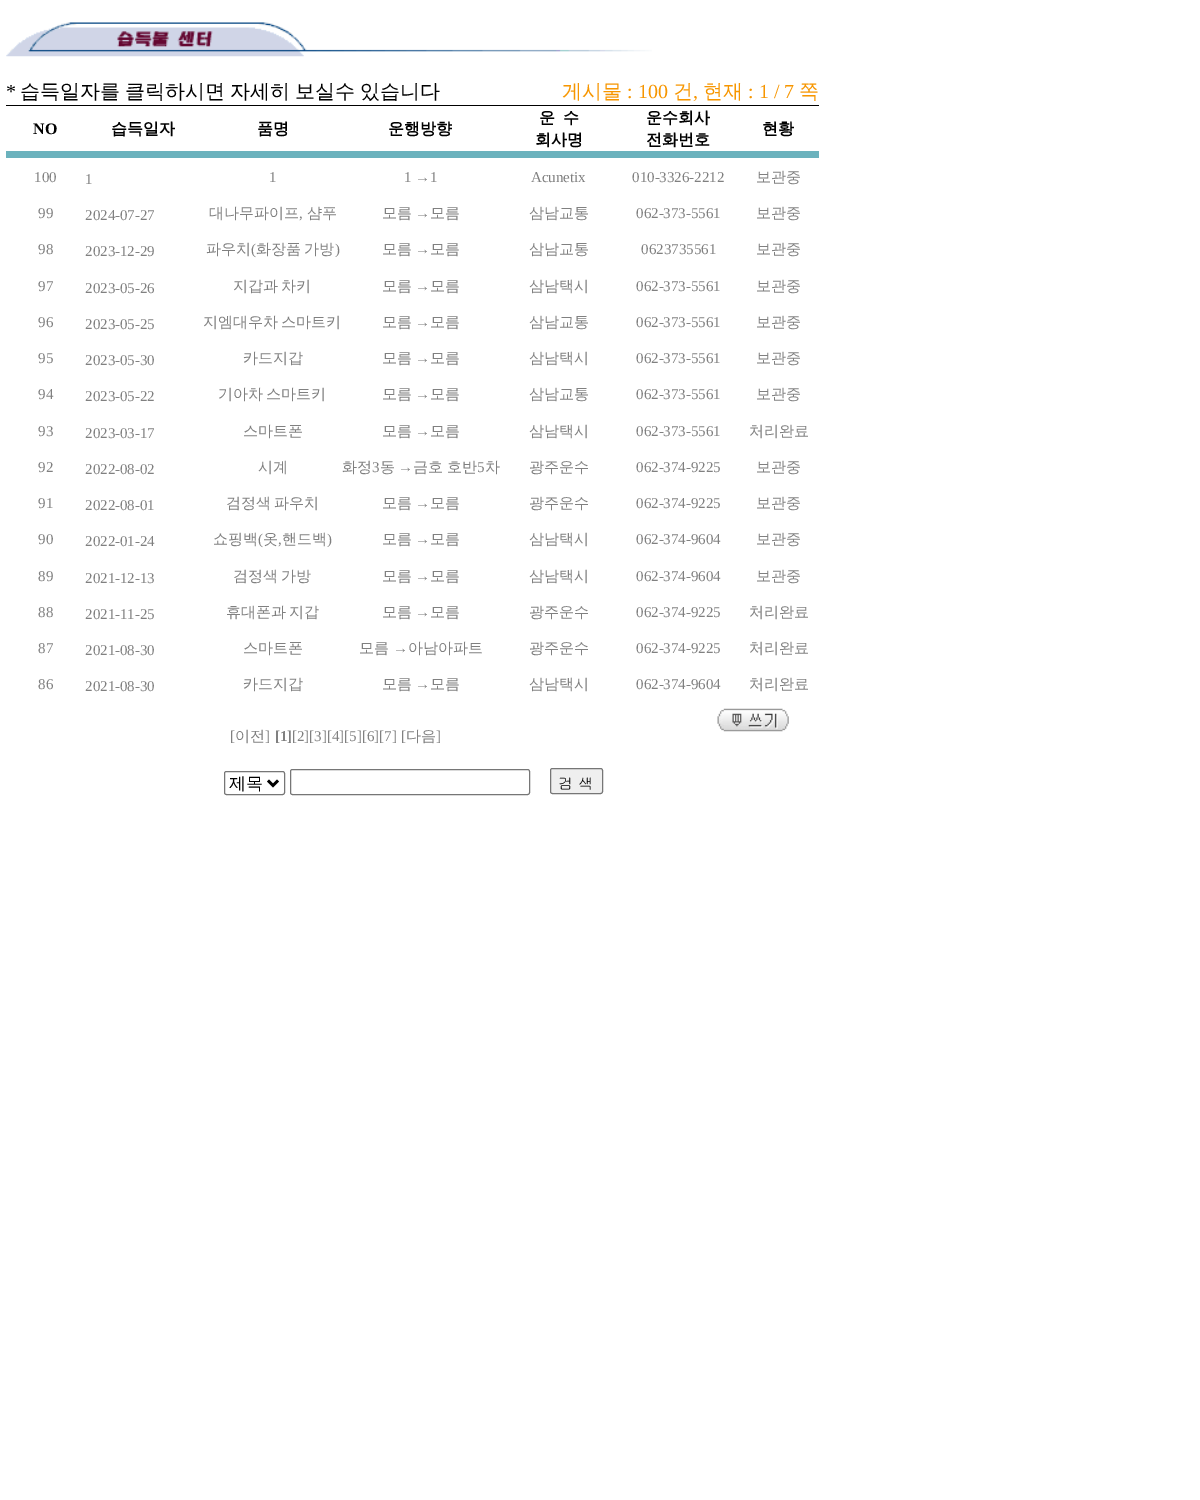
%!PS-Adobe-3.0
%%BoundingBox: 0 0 1200 1500
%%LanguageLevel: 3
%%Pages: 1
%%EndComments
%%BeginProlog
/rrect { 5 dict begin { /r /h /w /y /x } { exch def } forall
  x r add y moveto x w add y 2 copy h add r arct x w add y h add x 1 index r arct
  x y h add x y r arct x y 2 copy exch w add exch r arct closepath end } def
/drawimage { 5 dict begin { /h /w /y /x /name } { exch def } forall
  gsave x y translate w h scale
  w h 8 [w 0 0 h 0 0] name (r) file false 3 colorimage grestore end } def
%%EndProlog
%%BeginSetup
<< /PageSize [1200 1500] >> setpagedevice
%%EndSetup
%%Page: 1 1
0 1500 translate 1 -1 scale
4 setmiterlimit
1 setgray
0 0 1200 1500 rectfill
(images/1.raw) 6 22 646 35 drawimage
0 setgray
6 105 813 1 rectfill
0.42 0.698 0.741 setrgbcolor
6 151 813 7 rectfill
(images/2.raw) 717 708 72 24 drawimage
0.463 setgray
224.5 771.5 60 23 2 rrect stroke
0 setgray
2.5 setlinewidth
newpath 268 780.5 moveto 273 785.5 lineto 278 780.5 lineto stroke
0.463 setgray
1 setlinewidth
290.5 769.5 239 25 2 rrect stroke
0.937 setgray
550.5 768.5 52 25 2 rrect gsave fill grestore
0.463 setgray
stroke
/LiberationSerif-Regular [20 0 0 -20 0 0] selectfont
0 setgray
6 98 moveto (*) show
/WenQuanYiZenHei-Medium [20 0 0 -20 0 0] selectfont
20 98 moveto -1 0 32 (습득일자를 클릭하시면 자세히 보실수 있습니다) widthshow
0.969 0.588 0 setrgbcolor
562 98 moveto (게시물) show
/LiberationSerif-Regular [20 0 0 -20 0 0] selectfont
627 98 moveto (: 100) show
/WenQuanYiZenHei-Medium [20 0 0 -20 0 0] selectfont
673 98 moveto (건) show
/LiberationSerif-Regular [20 0 0 -20 0 0] selectfont
693 98 moveto (,) show
/WenQuanYiZenHei-Medium [20 0 0 -20 0 0] selectfont
703 98 moveto (현재) show
/LiberationSerif-Regular [20 0 0 -20 0 0] selectfont
748 98 moveto (: 1 / 7) show
/WenQuanYiZenHei-Medium [20 0 0 -20 0 0] selectfont
799 98 moveto (쪽) show
/LiberationSerif-Bold [16 0 0 -16 0 0] selectfont
0 setgray
33 134 moveto (NO) show
/WenQuanYiZenHei-Bold [16 0 0 -16 0 0] selectfont
111 134 moveto (습득일자) show
257 134 moveto (품명) show
388 134 moveto (운행방향) show
539 123 moveto (운) show
563 123 moveto (수) show
535 145 moveto (회사명) show
646 123 moveto (운수회사) show
646 145 moveto (전화번호) show
762 134 moveto (현황) show
/LiberationSerif-Regular [15 0 0 -15 0 0] selectfont
0.502 setgray
34 182 moveto (100) show
85 184 moveto (1) show
269 182 moveto (1) show
404 182 moveto (1 →1) show
531 182 moveto (Acunetix) show
632 182 moveto (010-3326-2212) show
/WenQuanYiZenHei-Medium [15 0 0 -15 0 0] selectfont
756 182 moveto (보관중) show
/LiberationSerif-Regular [15 0 0 -15 0 0] selectfont
38 218 moveto (99) show
85 220 moveto (2024-07-27) show
/WenQuanYiZenHei-Medium [15 0 0 -15 0 0] selectfont
209 218 moveto (대나무파이프) show
/LiberationSerif-Regular [15 0 0 -15 0 0] selectfont
299 218 moveto (,) show
/WenQuanYiZenHei-Medium [15 0 0 -15 0 0] selectfont
307 218 moveto (샴푸) show
382 218 moveto (모름) show
/LiberationSerif-Regular [15 0 0 -15 0 0] selectfont
415 218 moveto (→) show
/WenQuanYiZenHei-Medium [15 0 0 -15 0 0] selectfont
430 218 moveto (모름) show
529 218 moveto (삼남교통) show
/LiberationSerif-Regular [15 0 0 -15 0 0] selectfont
636 218 moveto (062-373-5561) show
/WenQuanYiZenHei-Medium [15 0 0 -15 0 0] selectfont
756 218 moveto (보관중) show
/LiberationSerif-Regular [15 0 0 -15 0 0] selectfont
38 254 moveto (98) show
85 256 moveto (2023-12-29) show
/WenQuanYiZenHei-Medium [15 0 0 -15 0 0] selectfont
206 254 moveto (파우치) show
/LiberationSerif-Regular [15 0 0 -15 0 0] selectfont
251 254 moveto (\() show
/WenQuanYiZenHei-Medium [15 0 0 -15 0 0] selectfont
256 254 moveto -1 0 32 (화장품 가방) widthshow
/LiberationSerif-Regular [15 0 0 -15 0 0] selectfont
335 254 moveto (\)) show
/WenQuanYiZenHei-Medium [15 0 0 -15 0 0] selectfont
382 254 moveto (모름) show
/LiberationSerif-Regular [15 0 0 -15 0 0] selectfont
415 254 moveto (→) show
/WenQuanYiZenHei-Medium [15 0 0 -15 0 0] selectfont
430 254 moveto (모름) show
529 254 moveto (삼남교통) show
/LiberationSerif-Regular [15 0 0 -15 0 0] selectfont
641 254 moveto (0623735561) show
/WenQuanYiZenHei-Medium [15 0 0 -15 0 0] selectfont
756 254 moveto (보관중) show
/LiberationSerif-Regular [15 0 0 -15 0 0] selectfont
38 291 moveto (97) show
85 293 moveto (2023-05-26) show
/WenQuanYiZenHei-Medium [15 0 0 -15 0 0] selectfont
233 291 moveto -1 0 32 (지갑과 차키) widthshow
382 291 moveto (모름) show
/LiberationSerif-Regular [15 0 0 -15 0 0] selectfont
415 291 moveto (→) show
/WenQuanYiZenHei-Medium [15 0 0 -15 0 0] selectfont
430 291 moveto (모름) show
529 291 moveto (삼남택시) show
/LiberationSerif-Regular [15 0 0 -15 0 0] selectfont
636 291 moveto (062-373-5561) show
/WenQuanYiZenHei-Medium [15 0 0 -15 0 0] selectfont
756 291 moveto (보관중) show
/LiberationSerif-Regular [15 0 0 -15 0 0] selectfont
38 327 moveto (96) show
85 329 moveto (2023-05-25) show
/WenQuanYiZenHei-Medium [15 0 0 -15 0 0] selectfont
203 327 moveto -1 0 32 (지엠대우차 스마트키) widthshow
382 327 moveto (모름) show
/LiberationSerif-Regular [15 0 0 -15 0 0] selectfont
415 327 moveto (→) show
/WenQuanYiZenHei-Medium [15 0 0 -15 0 0] selectfont
430 327 moveto (모름) show
529 327 moveto (삼남교통) show
/LiberationSerif-Regular [15 0 0 -15 0 0] selectfont
636 327 moveto (062-373-5561) show
/WenQuanYiZenHei-Medium [15 0 0 -15 0 0] selectfont
756 327 moveto (보관중) show
/LiberationSerif-Regular [15 0 0 -15 0 0] selectfont
38 363 moveto (95) show
85 365 moveto (2023-05-30) show
/WenQuanYiZenHei-Medium [15 0 0 -15 0 0] selectfont
243 363 moveto (카드지갑) show
382 363 moveto (모름) show
/LiberationSerif-Regular [15 0 0 -15 0 0] selectfont
415 363 moveto (→) show
/WenQuanYiZenHei-Medium [15 0 0 -15 0 0] selectfont
430 363 moveto (모름) show
529 363 moveto (삼남택시) show
/LiberationSerif-Regular [15 0 0 -15 0 0] selectfont
636 363 moveto (062-373-5561) show
/WenQuanYiZenHei-Medium [15 0 0 -15 0 0] selectfont
756 363 moveto (보관중) show
/LiberationSerif-Regular [15 0 0 -15 0 0] selectfont
38 399 moveto (94) show
85 401 moveto (2023-05-22) show
/WenQuanYiZenHei-Medium [15 0 0 -15 0 0] selectfont
218 399 moveto -1 0 32 (기아차 스마트키) widthshow
382 399 moveto (모름) show
/LiberationSerif-Regular [15 0 0 -15 0 0] selectfont
415 399 moveto (→) show
/WenQuanYiZenHei-Medium [15 0 0 -15 0 0] selectfont
430 399 moveto (모름) show
529 399 moveto (삼남교통) show
/LiberationSerif-Regular [15 0 0 -15 0 0] selectfont
636 399 moveto (062-373-5561) show
/WenQuanYiZenHei-Medium [15 0 0 -15 0 0] selectfont
756 399 moveto (보관중) show
/LiberationSerif-Regular [15 0 0 -15 0 0] selectfont
38 436 moveto (93) show
85 438 moveto (2023-03-17) show
/WenQuanYiZenHei-Medium [15 0 0 -15 0 0] selectfont
243 436 moveto (스마트폰) show
382 436 moveto (모름) show
/LiberationSerif-Regular [15 0 0 -15 0 0] selectfont
415 436 moveto (→) show
/WenQuanYiZenHei-Medium [15 0 0 -15 0 0] selectfont
430 436 moveto (모름) show
529 436 moveto (삼남택시) show
/LiberationSerif-Regular [15 0 0 -15 0 0] selectfont
636 436 moveto (062-373-5561) show
/WenQuanYiZenHei-Medium [15 0 0 -15 0 0] selectfont
749 436 moveto (처리완료) show
/LiberationSerif-Regular [15 0 0 -15 0 0] selectfont
38 472 moveto (92) show
85 474 moveto (2022-08-02) show
/WenQuanYiZenHei-Medium [15 0 0 -15 0 0] selectfont
258 472 moveto (시계) show
342 472 moveto (화정) show
/LiberationSerif-Regular [15 0 0 -15 0 0] selectfont
372 472 moveto (3) show
/WenQuanYiZenHei-Medium [15 0 0 -15 0 0] selectfont
380 472 moveto (동) show
/LiberationSerif-Regular [15 0 0 -15 0 0] selectfont
398 472 moveto (→) show
/WenQuanYiZenHei-Medium [15 0 0 -15 0 0] selectfont
413 472 moveto (금호 호반) show
/LiberationSerif-Regular [15 0 0 -15 0 0] selectfont
477 472 moveto (5) show
/WenQuanYiZenHei-Medium [15 0 0 -15 0 0] selectfont
485 472 moveto (차) show
529 472 moveto (광주운수) show
/LiberationSerif-Regular [15 0 0 -15 0 0] selectfont
636 472 moveto (062-374-9225) show
/WenQuanYiZenHei-Medium [15 0 0 -15 0 0] selectfont
756 472 moveto (보관중) show
/LiberationSerif-Regular [15 0 0 -15 0 0] selectfont
38 508 moveto (91) show
85 510 moveto (2022-08-01) show
/WenQuanYiZenHei-Medium [15 0 0 -15 0 0] selectfont
226 508 moveto -1 0 32 (검정색 파우치) widthshow
382 508 moveto (모름) show
/LiberationSerif-Regular [15 0 0 -15 0 0] selectfont
415 508 moveto (→) show
/WenQuanYiZenHei-Medium [15 0 0 -15 0 0] selectfont
430 508 moveto (모름) show
529 508 moveto (광주운수) show
/LiberationSerif-Regular [15 0 0 -15 0 0] selectfont
636 508 moveto (062-374-9225) show
/WenQuanYiZenHei-Medium [15 0 0 -15 0 0] selectfont
756 508 moveto (보관중) show
/LiberationSerif-Regular [15 0 0 -15 0 0] selectfont
38 544 moveto (90) show
85 546 moveto (2022-01-24) show
/WenQuanYiZenHei-Medium [15 0 0 -15 0 0] selectfont
213 544 moveto (쇼핑백) show
/LiberationSerif-Regular [15 0 0 -15 0 0] selectfont
258 544 moveto (\() show
/WenQuanYiZenHei-Medium [15 0 0 -15 0 0] selectfont
263 544 moveto (옷) show
/LiberationSerif-Regular [15 0 0 -15 0 0] selectfont
278 544 moveto (,) show
/WenQuanYiZenHei-Medium [15 0 0 -15 0 0] selectfont
282 544 moveto (핸드백) show
/LiberationSerif-Regular [15 0 0 -15 0 0] selectfont
327 544 moveto (\)) show
/WenQuanYiZenHei-Medium [15 0 0 -15 0 0] selectfont
382 544 moveto (모름) show
/LiberationSerif-Regular [15 0 0 -15 0 0] selectfont
415 544 moveto (→) show
/WenQuanYiZenHei-Medium [15 0 0 -15 0 0] selectfont
430 544 moveto (모름) show
529 544 moveto (삼남택시) show
/LiberationSerif-Regular [15 0 0 -15 0 0] selectfont
636 544 moveto (062-374-9604) show
/WenQuanYiZenHei-Medium [15 0 0 -15 0 0] selectfont
756 544 moveto (보관중) show
/LiberationSerif-Regular [15 0 0 -15 0 0] selectfont
38 581 moveto (89) show
85 583 moveto (2021-12-13) show
/WenQuanYiZenHei-Medium [15 0 0 -15 0 0] selectfont
233 581 moveto -1 0 32 (검정색 가방) widthshow
382 581 moveto (모름) show
/LiberationSerif-Regular [15 0 0 -15 0 0] selectfont
415 581 moveto (→) show
/WenQuanYiZenHei-Medium [15 0 0 -15 0 0] selectfont
430 581 moveto (모름) show
529 581 moveto (삼남택시) show
/LiberationSerif-Regular [15 0 0 -15 0 0] selectfont
636 581 moveto (062-374-9604) show
/WenQuanYiZenHei-Medium [15 0 0 -15 0 0] selectfont
756 581 moveto (보관중) show
/LiberationSerif-Regular [15 0 0 -15 0 0] selectfont
38 617 moveto (88) show
85 619 moveto (2021-11-25) show
/WenQuanYiZenHei-Medium [15 0 0 -15 0 0] selectfont
226 617 moveto -1 0 32 (휴대폰과 지갑) widthshow
382 617 moveto (모름) show
/LiberationSerif-Regular [15 0 0 -15 0 0] selectfont
415 617 moveto (→) show
/WenQuanYiZenHei-Medium [15 0 0 -15 0 0] selectfont
430 617 moveto (모름) show
529 617 moveto (광주운수) show
/LiberationSerif-Regular [15 0 0 -15 0 0] selectfont
636 617 moveto (062-374-9225) show
/WenQuanYiZenHei-Medium [15 0 0 -15 0 0] selectfont
749 617 moveto (처리완료) show
/LiberationSerif-Regular [15 0 0 -15 0 0] selectfont
38 653 moveto (87) show
85 655 moveto (2021-08-30) show
/WenQuanYiZenHei-Medium [15 0 0 -15 0 0] selectfont
243 653 moveto (스마트폰) show
359 653 moveto (모름) show
/LiberationSerif-Regular [15 0 0 -15 0 0] selectfont
393 653 moveto (→) show
/WenQuanYiZenHei-Medium [15 0 0 -15 0 0] selectfont
408 653 moveto (아남아파트) show
529 653 moveto (광주운수) show
/LiberationSerif-Regular [15 0 0 -15 0 0] selectfont
636 653 moveto (062-374-9225) show
/WenQuanYiZenHei-Medium [15 0 0 -15 0 0] selectfont
749 653 moveto (처리완료) show
/LiberationSerif-Regular [15 0 0 -15 0 0] selectfont
38 689 moveto (86) show
85 691 moveto (2021-08-30) show
/WenQuanYiZenHei-Medium [15 0 0 -15 0 0] selectfont
243 689 moveto (카드지갑) show
382 689 moveto (모름) show
/LiberationSerif-Regular [15 0 0 -15 0 0] selectfont
415 689 moveto (→) show
/WenQuanYiZenHei-Medium [15 0 0 -15 0 0] selectfont
430 689 moveto (모름) show
529 689 moveto (삼남택시) show
/LiberationSerif-Regular [15 0 0 -15 0 0] selectfont
636 689 moveto (062-374-9604) show
/WenQuanYiZenHei-Medium [15 0 0 -15 0 0] selectfont
749 689 moveto (처리완료) show
/LiberationSerif-Regular [15 0 0 -15 0 0] selectfont
230 741 moveto ([) show
/WenQuanYiZenHei-Medium [15 0 0 -15 0 0] selectfont
235 741 moveto (이전) show
/LiberationSerif-Regular [15 0 0 -15 0 0] selectfont
265 741 moveto (]) show
/LiberationSerif-Bold [15 0 0 -15 0 0] selectfont
275 741 moveto ([1]) show
/LiberationSerif-Regular [15 0 0 -15 0 0] selectfont
292 741 moveto ([2][3][4][5][6][7] [) show
/WenQuanYiZenHei-Medium [15 0 0 -15 0 0] selectfont
406 741 moveto (다음) show
/LiberationSerif-Regular [15 0 0 -15 0 0] selectfont
436 741 moveto (]) show
/WenQuanYiZenHei-Medium [17 0 0 -17 0 0] selectfont
0 setgray
229 789 moveto (제목) show
/Gulim-Regular [15 0 0 -15 0 0] selectfont
558 789 moveto (검 색) show
showpage
%%EOF
